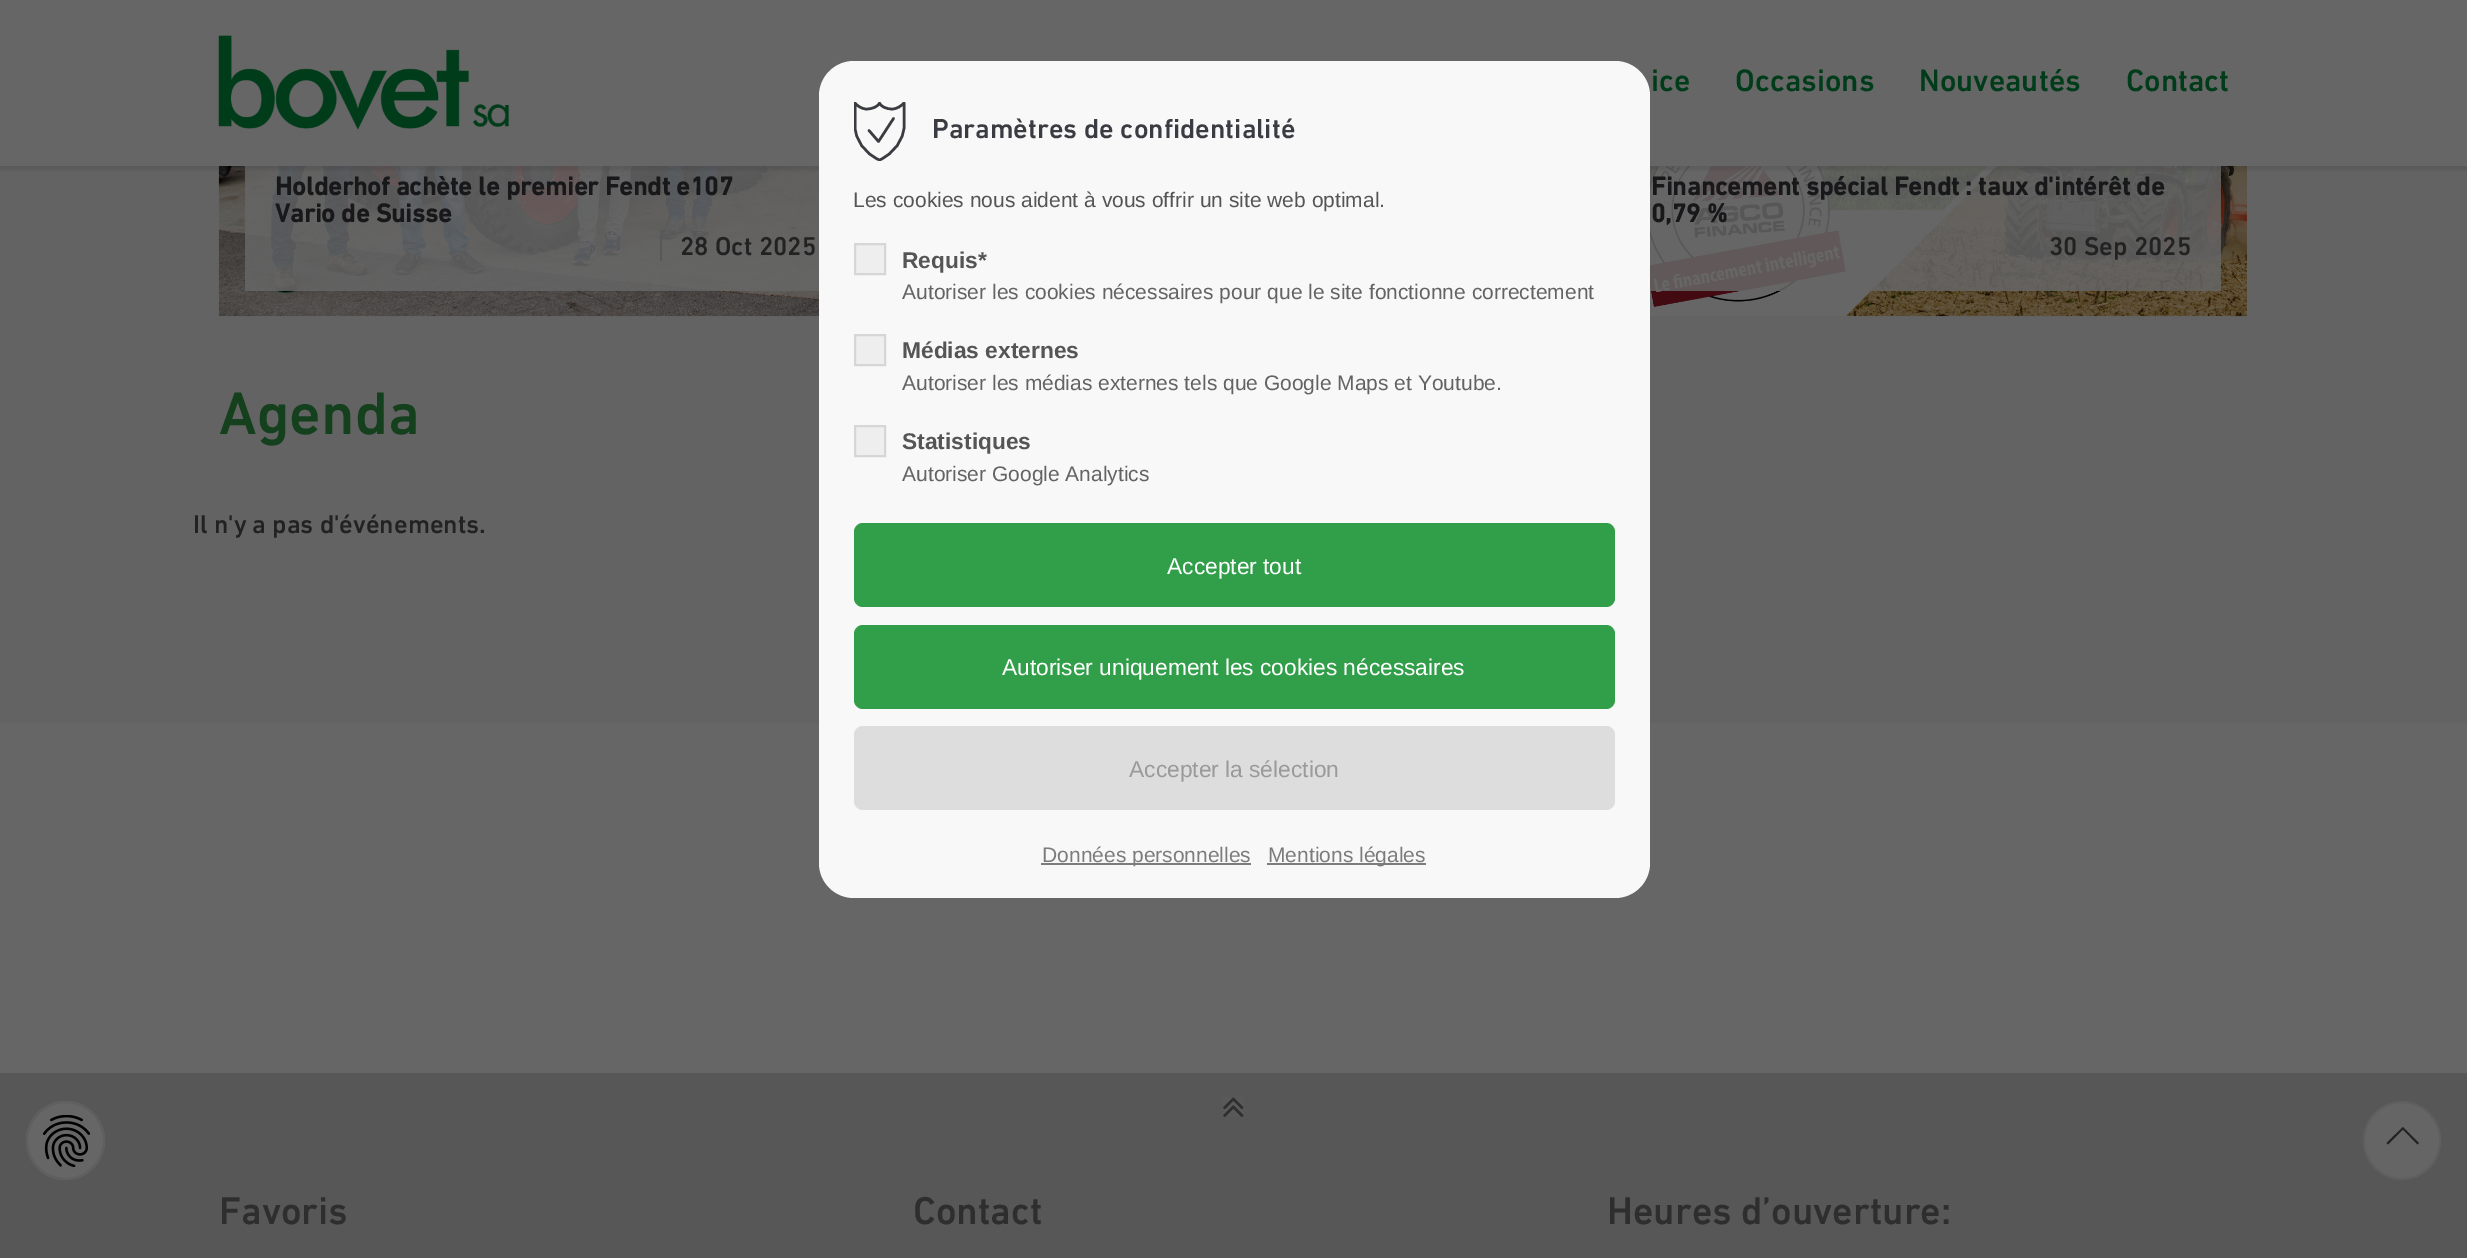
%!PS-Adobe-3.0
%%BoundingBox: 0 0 2467 1258
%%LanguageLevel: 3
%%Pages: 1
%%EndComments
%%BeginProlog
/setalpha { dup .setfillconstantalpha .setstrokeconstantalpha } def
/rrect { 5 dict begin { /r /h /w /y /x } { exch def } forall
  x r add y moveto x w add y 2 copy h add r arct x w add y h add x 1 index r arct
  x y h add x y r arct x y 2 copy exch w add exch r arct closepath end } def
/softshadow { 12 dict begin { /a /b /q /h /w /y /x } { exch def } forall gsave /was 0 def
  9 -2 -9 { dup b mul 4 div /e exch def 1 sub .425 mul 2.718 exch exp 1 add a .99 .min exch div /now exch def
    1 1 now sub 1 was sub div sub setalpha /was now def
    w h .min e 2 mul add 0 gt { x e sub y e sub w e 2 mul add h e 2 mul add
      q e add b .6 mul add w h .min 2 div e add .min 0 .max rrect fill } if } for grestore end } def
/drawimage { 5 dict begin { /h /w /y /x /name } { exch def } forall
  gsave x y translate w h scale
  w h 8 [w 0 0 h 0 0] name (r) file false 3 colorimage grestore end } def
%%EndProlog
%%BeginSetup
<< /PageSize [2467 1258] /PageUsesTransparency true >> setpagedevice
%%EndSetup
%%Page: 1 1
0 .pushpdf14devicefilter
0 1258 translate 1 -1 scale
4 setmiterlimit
0.4 setgray
0 0 2467 1258 rectfill
0.388 setgray
0 166 2467 557 rectfill
(images/3.raw) 218 166 601 151 drawimage
0.85 setalpha
0.4 setgray
245 166 574 125 rectfill
1 setalpha
(images/4.raw) 1650 166 597 151 drawimage
0.85 setalpha
1650 166 571 125 rectfill
1 setalpha
0 setgray
-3 -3 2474 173 0 2 0.1 softshadow
0.4 setgray
0 0 2467 166 rectfill
(images/1.raw) 218 35 291 95 drawimage
0.973 setgray
819 61 831 837 35 rrect fill
gsave
854 102 53 59 rectclip
0.231 0.235 0.255 setrgbcolor
2.5 setlinewidth
1 setlinecap
1 setlinejoin
newpath 879.5 160 moveto 864.5 153.5 855 139.5 855 126 curveto 855 103 lineto 857 105.5 861.5 109 866.5 109 curveto 872.5 109 878 106.5 879.5 103 curveto 881 106.5 886 109 892 109 curveto 897.5 109 901.5 105.5 904 103 curveto 904 126 lineto 904 139.5 894 153.5 879.5 160 curveto closepath stroke
grestore
0.231 0.235 0.255 setrgbcolor
2.5 setlinewidth
1 setlinecap
1 setlinejoin
newpath 869 130.5 moveto 878.5 141.5 lineto 893.5 118.5 lineto stroke
0.933 setgray
newpath 855 244 moveto 885 244 lineto 885 274 lineto 855 274 lineto closepath gsave fill grestore
0.839 setgray
2 setlinewidth
0 setlinecap
0 setlinejoin
stroke
0.933 setgray
newpath 855 335 moveto 885 335 lineto 885 365 lineto 855 365 lineto closepath gsave fill grestore
0.839 setgray
stroke
0.933 setgray
newpath 855 426 moveto 885 426 lineto 885 456 lineto 855 456 lineto closepath gsave fill grestore
0.839 setgray
stroke
0.192 0.624 0.286 setrgbcolor
854 523 761 84 9 rrect fill
854 625 761 84 9 rrect fill
0.867 setgray
854 726 761 84 9 rrect fill
0.486 setgray
1041 863 210 2 rectfill
1267 863 159 2 rectfill
0.341 setgray
0 1073 2467 185 rectfill
0.4 setgray
newpath 65.5 1140.5 39.5 0 360 arc closepath fill
(images/2.raw) 42 1115 49 52 drawimage
0.369 0.373 0.369 setrgbcolor
newpath 65.5 1140.5 38.5 0 360 arc closepath stroke
0.345 setgray
660 235 2 26 rectfill
2030 235 2 26 rectfill
(images/5.raw) 1223 1097 21 20 drawimage
0.9 setalpha
0.4 setgray
2364 1102 76 77 38 rrect fill
1 setalpha
0.369 0.373 0.369 setrgbcolor
2364 1102 76 77 38 rrect stroke
0.133 setgray
newpath 2419 1143 moveto 2417.5 1144.5 lineto 2403 1129.5 lineto 2388 1144.5 lineto 2386.5 1143 lineto 2403 1127 lineto closepath fill
/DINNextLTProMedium-Regular [31.5 0 0 -31.5 0 0] selectfont
0 0.235 0.102 setrgbcolor
1651 91 moveto (ice) show
1735 91 moveto (Occasions) show
1919 91 moveto (Nouveautés) show
2126 91 moveto (Contact) show
/DINNextLTProMedium-Regular [28 0 0 -28 0 0] selectfont
0.231 0.235 0.259 setrgbcolor
932 138 moveto (Paramètres de confidentialité) show
/LiberationSans-Regular [21 0 0 -21 0 0] selectfont
0.333 setgray
853 207 moveto (Les cookies nous aident à vous offrir un site web optimal.) show
/LiberationSans-Bold [22.75 0 0 -22.75 0 0] selectfont
902 268 moveto (Requis*) show
/LiberationSans-Regular [21 0 0 -21 0 0] selectfont
0.388 setgray
902 299 moveto (Autoriser les cookies nécessaires pour que le site fonctionne correctement) show
/LiberationSans-Bold [22.75 0 0 -22.75 0 0] selectfont
0.333 setgray
902 358 moveto (Médias externes) show
/LiberationSans-Regular [21 0 0 -21 0 0] selectfont
0.388 setgray
902 390 moveto (Autoriser les médias externes tels que Google Maps et Youtube.) show
/LiberationSans-Bold [22.75 0 0 -22.75 0 0] selectfont
0.333 setgray
902 449 moveto (Statistiques) show
/LiberationSans-Regular [21 0 0 -21 0 0] selectfont
0.388 setgray
902 481 moveto (Autoriser Google Analytics) show
/LiberationSans-Regular [22.75 0 0 -22.75 0 0] selectfont
1 setgray
1167 574 moveto (Accepter tout) show
1002 675 moveto (Autoriser uniquement les cookies nécessaires) show
0.604 setgray
1129 777 moveto (Accepter la sélection) show
/LiberationSans-Regular [21 0 0 -21 0 0] selectfont
0.486 setgray
1042 862 moveto (Données personnelles) show
1268 862 moveto (Mentions légales) show
/DINNextLTProMedium-Bold [26.25 0 0 -26.25 0 0] selectfont
0.094 0.094 0.102 setrgbcolor
275 195 moveto (Holderhof achète le premier Fendt e107) show
275 222 moveto (Vario de Suisse) show
/DINNextLTProMedium-Regular [26.25 0 0 -26.25 0 0] selectfont
0.133 setgray
680 255 moveto (28 Oct 2025) show
/DINNextLTProMedium-Bold [26.25 0 0 -26.25 0 0] selectfont
0.094 0.094 0.102 setrgbcolor
1651 195 moveto (Financement spécial Fendt : taux d'intérêt de) show
1651 222 moveto (0,79 %) show
/DINNextLTProMedium-Regular [26.25 0 0 -26.25 0 0] selectfont
0.133 setgray
2049 255 moveto (30 Sep 2025) show
/DINNextLTProMedium-Regular [61 0 0 -61 0 0] selectfont
0.078 0.251 0.114 setrgbcolor
219 434 moveto (Agenda) show
/DINNextLTProMedium-Regular [26.25 0 0 -26.25 0 0] selectfont
0.133 setgray
193 533 moveto (Il n'y a pas d'événements.) show
/DINNextLTProMedium-Regular [39.4 0 0 -39.4 0 0] selectfont
0.18 setgray
219 1224 moveto (Favoris) show
913 1224 moveto (Contact) show
1607 1224 moveto (Heures d’ouverture:) show
.poppdf14devicefilter showpage
%%EOF
